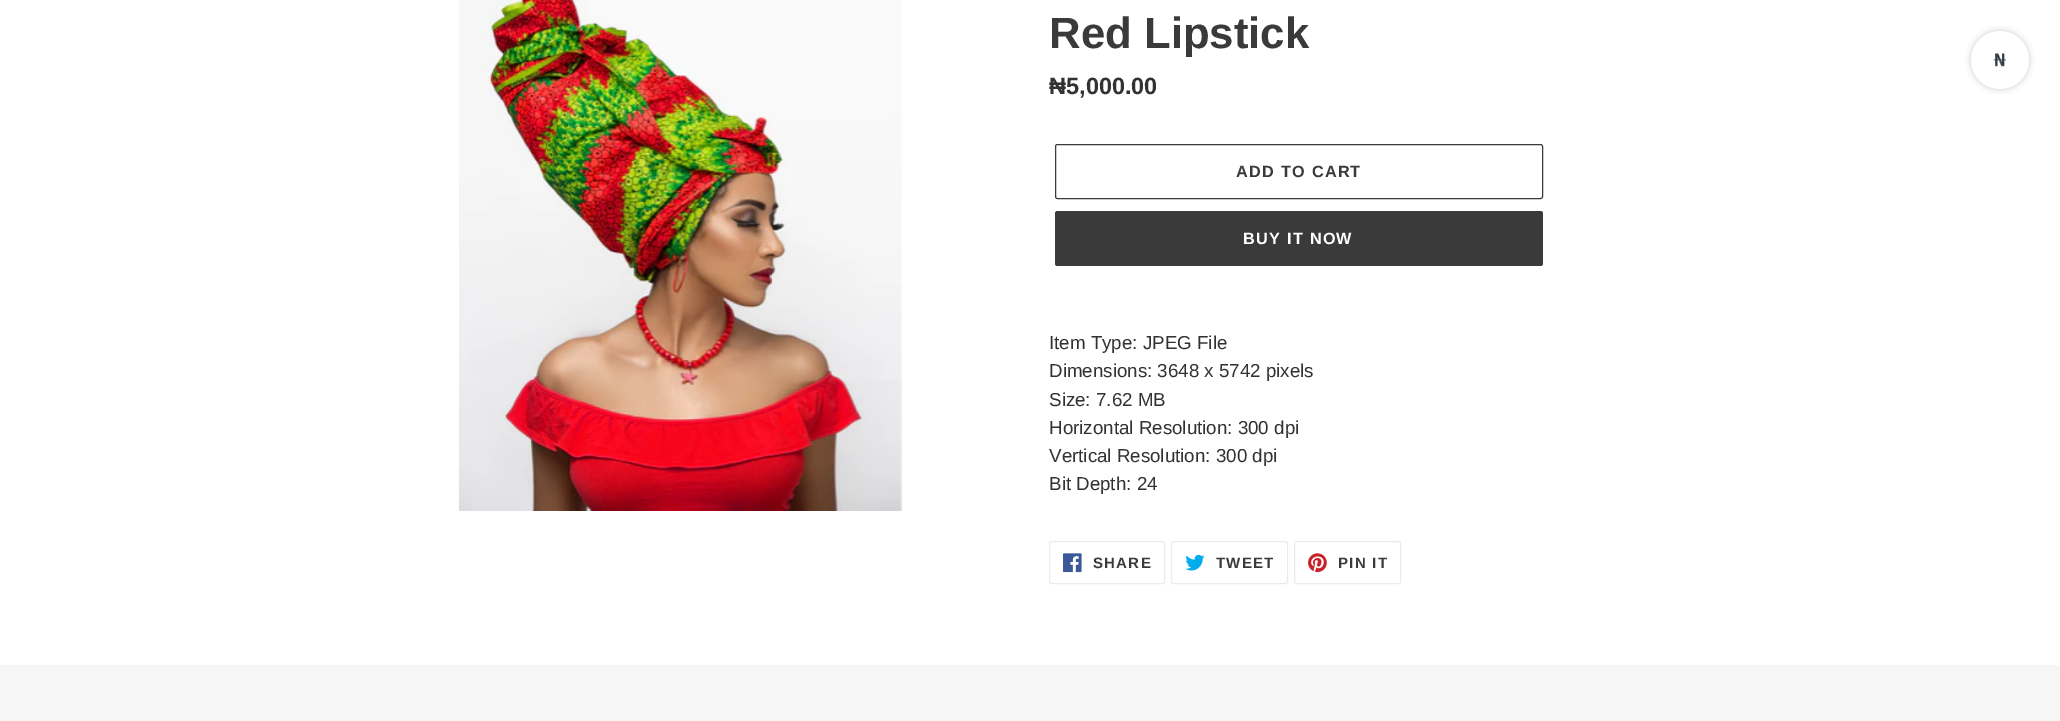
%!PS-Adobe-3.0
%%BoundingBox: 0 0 2060 721
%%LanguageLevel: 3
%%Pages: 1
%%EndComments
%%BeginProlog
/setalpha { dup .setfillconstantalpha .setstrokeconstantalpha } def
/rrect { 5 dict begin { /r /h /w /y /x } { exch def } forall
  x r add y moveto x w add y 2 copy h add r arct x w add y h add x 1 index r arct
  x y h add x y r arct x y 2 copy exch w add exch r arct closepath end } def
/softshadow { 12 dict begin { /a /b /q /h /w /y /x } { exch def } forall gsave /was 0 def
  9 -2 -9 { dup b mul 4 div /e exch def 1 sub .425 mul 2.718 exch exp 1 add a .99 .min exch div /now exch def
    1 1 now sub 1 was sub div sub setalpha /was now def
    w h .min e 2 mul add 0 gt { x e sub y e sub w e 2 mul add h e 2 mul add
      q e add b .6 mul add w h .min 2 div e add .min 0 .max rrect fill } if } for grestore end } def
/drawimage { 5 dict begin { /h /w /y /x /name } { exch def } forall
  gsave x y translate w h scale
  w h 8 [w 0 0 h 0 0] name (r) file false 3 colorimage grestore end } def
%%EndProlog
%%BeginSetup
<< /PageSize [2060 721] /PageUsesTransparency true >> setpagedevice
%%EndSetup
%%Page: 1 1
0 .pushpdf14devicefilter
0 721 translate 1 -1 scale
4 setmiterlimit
1 setgray
0 0 2060 721 rectfill
(images/1.raw) 459 0 443 511 drawimage
0.227 setgray
1055.5 144.5 487 54 2 rrect stroke
1055 211 488 55 2.5 rrect fill
0.922 setgray
1049.5 541.5 115 42 2 rrect stroke
(images/2.raw) 1063 553 19 20 drawimage
1171.5 541.5 116 42 2 rrect stroke
(images/3.raw) 1185 554 20 17 drawimage
1294.5 541.5 106 42 2 rrect stroke
(images/4.raw) 1308 553 19 20 drawimage
0.965 setgray
0 665 2060 56 rectfill
0.129 0.169 0.212 setrgbcolor
1971 31 58 58 29 3 0.25 softshadow
1 setgray
newpath 2000 60 29 0 360 arc closepath fill
(images/5.raw) 1993 53 13 14 drawimage
/LiberationSans-Bold [43.75 0 0 -43.75 0 0] selectfont
0.227 setgray
1049 48 moveto (Red Lipstick) show
/LiberationSans-Bold [23.5 0 0 -23.5 0 0] selectfont
0.2 0.196 0.196 setrgbcolor
1049 94 moveto (₦5,000.00) show
/LiberationSans-Bold [16.25 0 0 -16.25 0 0] selectfont
0.227 setgray
1236 177 moveto 1.25 0 (ADD TO CART) ashow
1 setgray
1243 244 moveto 1.25 0 (BUY IT NOW) ashow
/LiberationSans-Regular [18.75 0 0 -18.75 0 0] selectfont
0.2 0.196 0.196 setrgbcolor
1049 349 moveto (Item Type: JPEG File) show
1049 377 moveto (Dimensions: 3648 x 5742 pixels) show
1049 406 moveto (Size: 7.62 MB) show
1049 434 moveto (Horizontal Resolution: 300 dpi) show
1049 462 moveto (Vertical Resolution: 300 dpi) show
1049 490 moveto (Bit Depth: 24) show
/LiberationSans-Bold [15 0 0 -15 0 0] selectfont
0.227 setgray
1093 568 moveto 1.25 0 (SHARE) ashow
1216 568 moveto 1.25 0 (TWEET) ashow
1338 568 moveto 1.25 0 (PIN IT) ashow
.poppdf14devicefilter showpage
%%EOF
